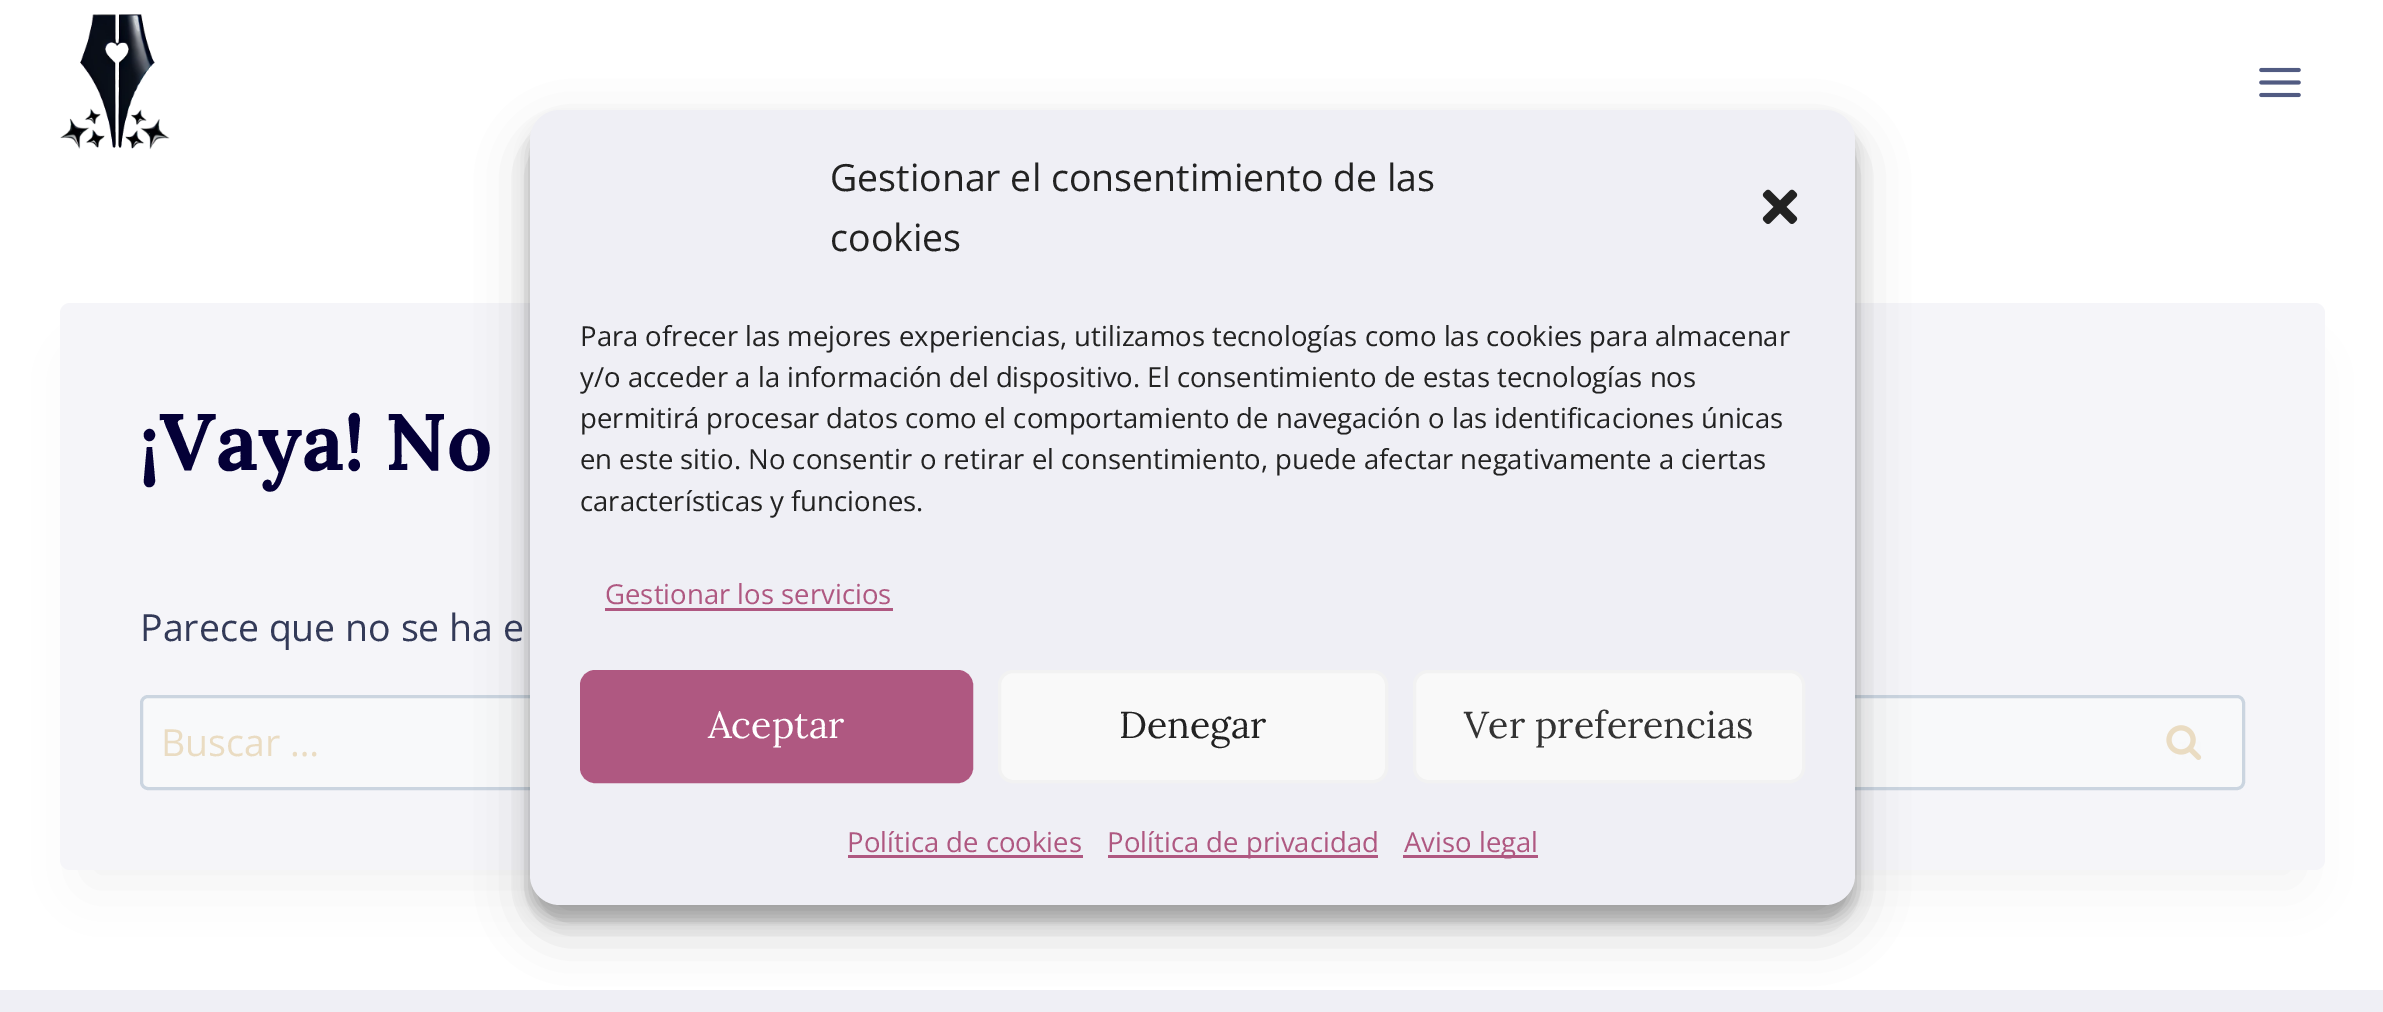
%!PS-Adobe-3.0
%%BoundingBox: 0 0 2383 1012
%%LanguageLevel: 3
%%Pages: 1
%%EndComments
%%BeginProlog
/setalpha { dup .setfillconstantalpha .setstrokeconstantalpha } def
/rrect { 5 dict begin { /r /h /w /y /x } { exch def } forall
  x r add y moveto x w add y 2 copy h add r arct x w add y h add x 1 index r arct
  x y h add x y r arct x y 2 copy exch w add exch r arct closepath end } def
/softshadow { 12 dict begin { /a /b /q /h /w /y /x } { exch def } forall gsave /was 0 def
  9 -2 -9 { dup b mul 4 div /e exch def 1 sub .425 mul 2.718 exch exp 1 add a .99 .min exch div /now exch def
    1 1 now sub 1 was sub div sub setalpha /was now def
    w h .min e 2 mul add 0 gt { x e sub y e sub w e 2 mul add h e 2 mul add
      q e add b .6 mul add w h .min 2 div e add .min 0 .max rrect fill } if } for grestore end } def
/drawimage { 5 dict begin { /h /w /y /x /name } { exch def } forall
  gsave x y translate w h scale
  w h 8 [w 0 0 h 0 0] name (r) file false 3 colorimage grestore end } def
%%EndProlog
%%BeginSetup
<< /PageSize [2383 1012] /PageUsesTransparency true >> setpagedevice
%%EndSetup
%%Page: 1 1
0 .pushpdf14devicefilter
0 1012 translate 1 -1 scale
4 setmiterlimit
1 setgray
0 0 2383 1012 rectfill
(images/1.raw) 60 14 110 136 drawimage
(images/2.raw) 2259 67 42 31 drawimage
0 setgray
85 365 2215 518 0 31 0.05 softshadow
0.961 0.961 0.976 setrgbcolor
60 303 2265 567 10 rrect fill
0.973 0.976 0.98 setrgbcolor
141.5 696.5 2102 92 6.5 rrect gsave fill grestore
0.796 0.835 0.878 setrgbcolor
3 setlinewidth
stroke
(images/3.raw) 2166 725 36 35 drawimage
0.937 0.937 0.961 setrgbcolor
0 990 2383 22 rectfill
0 setgray
530 125 1325 795 30 7.5 0.23 softshadow
530 135 1325 795 30 25 0.19 softshadow
0.937 0.937 0.961 setrgbcolor
530 110 1325 795 30 rrect fill
(images/4.raw) 1762 189 36 35 drawimage
0.686 0.345 0.506 setrgbcolor
605 608 288 3 rectfill
581.5 671.5 390 110 13.5 rrect gsave fill grestore
stroke
0.976 setgray
999.5 671.5 387 110 13.5 rrect gsave fill grestore
0.949 setgray
stroke
0.976 setgray
1414.5 671.5 389 110 13.5 rrect gsave fill grestore
0.949 setgray
stroke
0.686 0.345 0.506 setrgbcolor
848 855 235 3 rectfill
1108 855 270 3 rectfill
1403 855 135 3 rectfill
/Lora-Bold [80 0 0 -80 0 0] selectfont
0.016 0 0.216 setrgbcolor
140 470 moveto (¡Vaya! No) show
/OpenSans-Regular [37.5 0 0 -37.5 0 0] selectfont
0.2 0.227 0.345 setrgbcolor
140 641 moveto (Parece que no se ha e) show
0.918 0.863 0.761 setrgbcolor
161 756 moveto (Buscar …) show
0.133 setgray
830 191 moveto (Gestionar el consentimiento de las) show
830 251 moveto (cookies) show
/OpenSans-Regular [27.5 0 0 -27.5 0 0] selectfont
580 346 moveto (Para ofrecer las mejores experiencias, utilizamos tecnologías como las cookies para almacenar) show
580 387 moveto (y/o acceder a la información del dispositivo. El consentimiento de estas tecnologías nos) show
580 428 moveto (permitirá procesar datos como el comportamiento de navegación o las identificaciones únicas) show
580 469 moveto (en este sitio. No consentir o retirar el consentimiento, puede afectar negativamente a ciertas) show
580 511 moveto (características y funciones.) show
0.686 0.345 0.506 setrgbcolor
605 604 moveto (Gestionar los servicios) show
/Lora-Regular [37.5 0 0 -37.5 0 0] selectfont
1 setgray
708 738 moveto (Aceptar) show
0.133 setgray
1119 738 moveto (Denegar) show
0.2 setgray
1464 738 moveto (Ver preferencias) show
/OpenSans-Regular [27.5 0 0 -27.5 0 0] selectfont
0.686 0.345 0.506 setrgbcolor
847 852 moveto (Política de cookies) show
1107 852 moveto (Política de privacidad) show
1404 852 moveto (Aviso legal) show
.poppdf14devicefilter showpage
%%EOF
